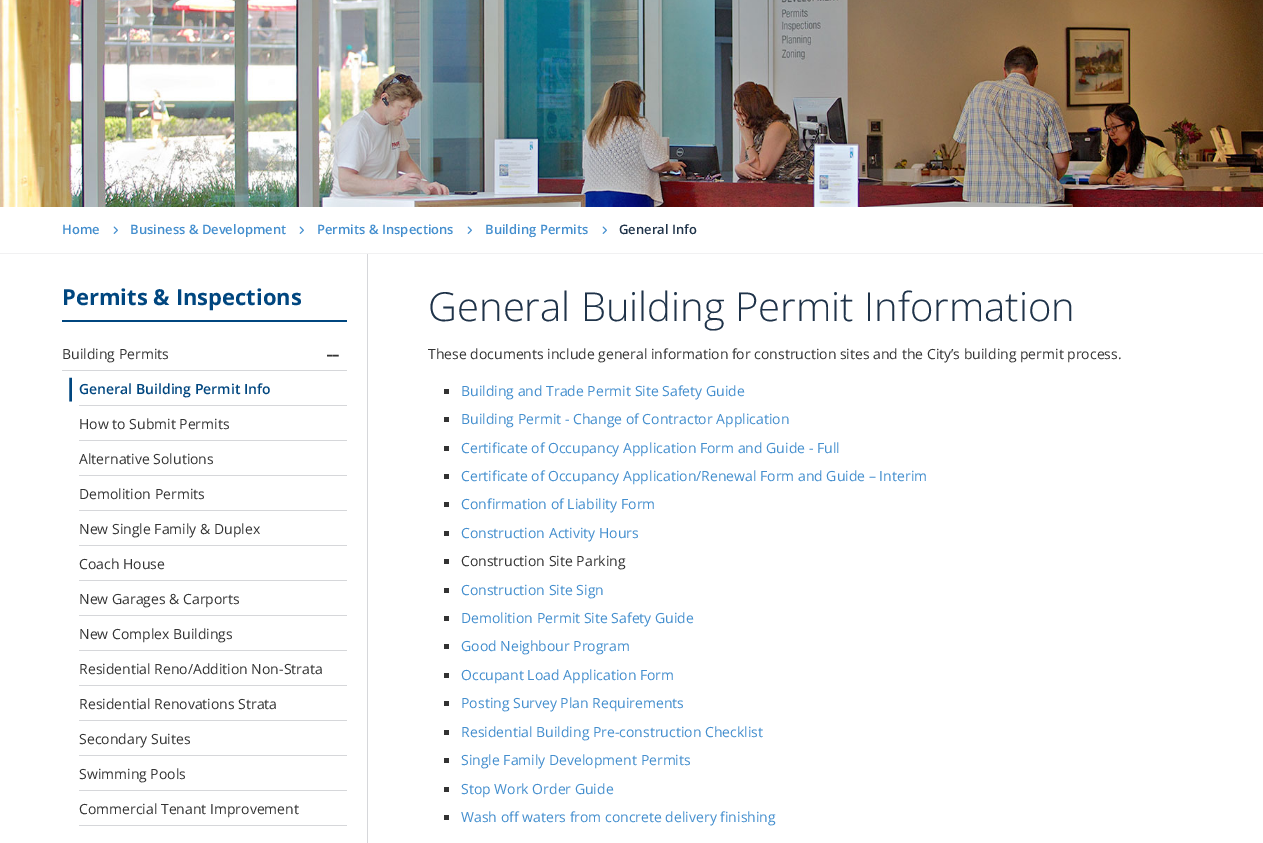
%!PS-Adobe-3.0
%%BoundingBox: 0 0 1263 843
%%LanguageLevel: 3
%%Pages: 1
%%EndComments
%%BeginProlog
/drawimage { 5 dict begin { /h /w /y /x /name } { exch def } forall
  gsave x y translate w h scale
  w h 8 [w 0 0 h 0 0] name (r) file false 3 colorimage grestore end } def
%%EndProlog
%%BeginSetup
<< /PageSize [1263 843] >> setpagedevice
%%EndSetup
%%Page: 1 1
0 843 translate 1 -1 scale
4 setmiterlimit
1 setgray
0 0 1263 843 rectfill
(images/1.raw) 0 0 1263 207 drawimage
0.945 0.945 0.949 setrgbcolor
0 253 1263 1 rectfill
(images/2.raw) 113 226 5 8 drawimage
(images/2.raw) 299 226 5 8 drawimage
(images/2.raw) 467 226 5 8 drawimage
(images/2.raw) 602 226 5 8 drawimage
0.839 0.843 0.855 setrgbcolor
367 254 1 589 rectfill
0 0.275 0.498 setrgbcolor
62 320 285 2 rectfill
0.839 0.843 0.855 setrgbcolor
62 370 285 1 rectfill
79 405 268 1 rectfill
79 440 268 1 rectfill
79 475 268 1 rectfill
79 510 268 1 rectfill
79 545 268 1 rectfill
79 580 268 1 rectfill
79 615 268 1 rectfill
79 650 268 1 rectfill
79 685 268 1 rectfill
79 720 268 1 rectfill
79 755 268 1 rectfill
79 790 268 1 rectfill
79 825 268 1 rectfill
0.2 setgray
444 389 5 5 rectfill
444 417 5 5 rectfill
444 446 5 5 rectfill
444 474 5 5 rectfill
444 502 5 5 rectfill
444 531 5 5 rectfill
444 559 5 5 rectfill
444 588 5 5 rectfill
444 616 5 5 rectfill
444 644 5 5 rectfill
444 673 5 5 rectfill
444 701 5 5 rectfill
444 730 5 5 rectfill
444 758 5 5 rectfill
444 787 5 5 rectfill
444 815 5 5 rectfill
/OpenSans-SemiBold [13 0 0 -13 0 0] selectfont
0.263 0.557 0.808 setrgbcolor
62 234 moveto (Home) show
130 234 moveto (Business & Development) show
317 234 moveto (Permits & Inspections) show
485 234 moveto (Building Permits) show
0.122 0.2 0.286 setrgbcolor
619 234 moveto (General Info) show
/OpenSans-Bold [22 0 0 -22 0 0] selectfont
0 0.275 0.498 setrgbcolor
62 305 moveto (Permits & Inspections) show
/OpenSans-Regular [14 0 0 -14 0 0] selectfont
0.2 setgray
62 359 moveto (Building Permits) show
/OpenSans-Regular [24 0 0 -24 0 0] selectfont
326 362 moveto -2 0 (--) ashow
/OpenSans-Bold [24 0 0 -24 0 0] selectfont
0 0.275 0.498 setrgbcolor
64 396 moveto (|) show
/OpenSans-SemiBold [14 0 0 -14 0 0] selectfont
79 394 moveto (General Building Permit Info) show
/OpenSans-Regular [14 0 0 -14 0 0] selectfont
0.2 setgray
79 429 moveto (How to Submit Permits) show
79 464 moveto (Alternative Solutions) show
79 499 moveto (Demolition Permits) show
79 534 moveto (New Single Family & Duplex) show
79 569 moveto (Coach House) show
79 604 moveto (New Garages & Carports) show
79 639 moveto (New Complex Buildings) show
79 674 moveto (Residential Reno/Addition Non-Strata) show
79 709 moveto (Residential Renovations Strata) show
79 744 moveto (Secondary Suites) show
79 779 moveto (Swimming Pools) show
79 814 moveto (Commercial Tenant Improvement) show
/OpenSans-Light [40 0 0 -40 0 0] selectfont
0.122 0.2 0.286 setrgbcolor
428 321 moveto (General Building Permit Information) show
/OpenSans-Regular [14 0 0 -14 0 0] selectfont
0.2 setgray
428 359 moveto (These documents include general information for construction sites and the City’s building permit process.) show
0.263 0.557 0.808 setrgbcolor
461 396 moveto (Building and Trade Permit Site Safety Guide) show
461 424 moveto (Building Permit - Change of Contractor Application) show
461 453 moveto (Certificate of Occupancy Application Form and Guide - Full) show
461 481 moveto (Certificate of Occupancy Application/Renewal Form and Guide – Interim) show
461 509 moveto (Confirmation of Liability Form) show
461 538 moveto (Construction Activity Hours) show
0.2 setgray
461 566 moveto (Construction Site Parking) show
0.263 0.557 0.808 setrgbcolor
461 595 moveto (Construction Site Sign) show
461 623 moveto (Demolition Permit Site Safety Guide) show
461 651 moveto (Good Neighbour Program) show
461 680 moveto (Occupant Load Application Form) show
461 708 moveto (Posting Survey Plan Requirements) show
461 737 moveto (Residential Building Pre-construction Checklist) show
461 765 moveto (Single Family Development Permits) show
461 794 moveto (Stop Work Order Guide) show
461 822 moveto (Wash off waters from concrete delivery finishing) show
showpage
%%EOF
